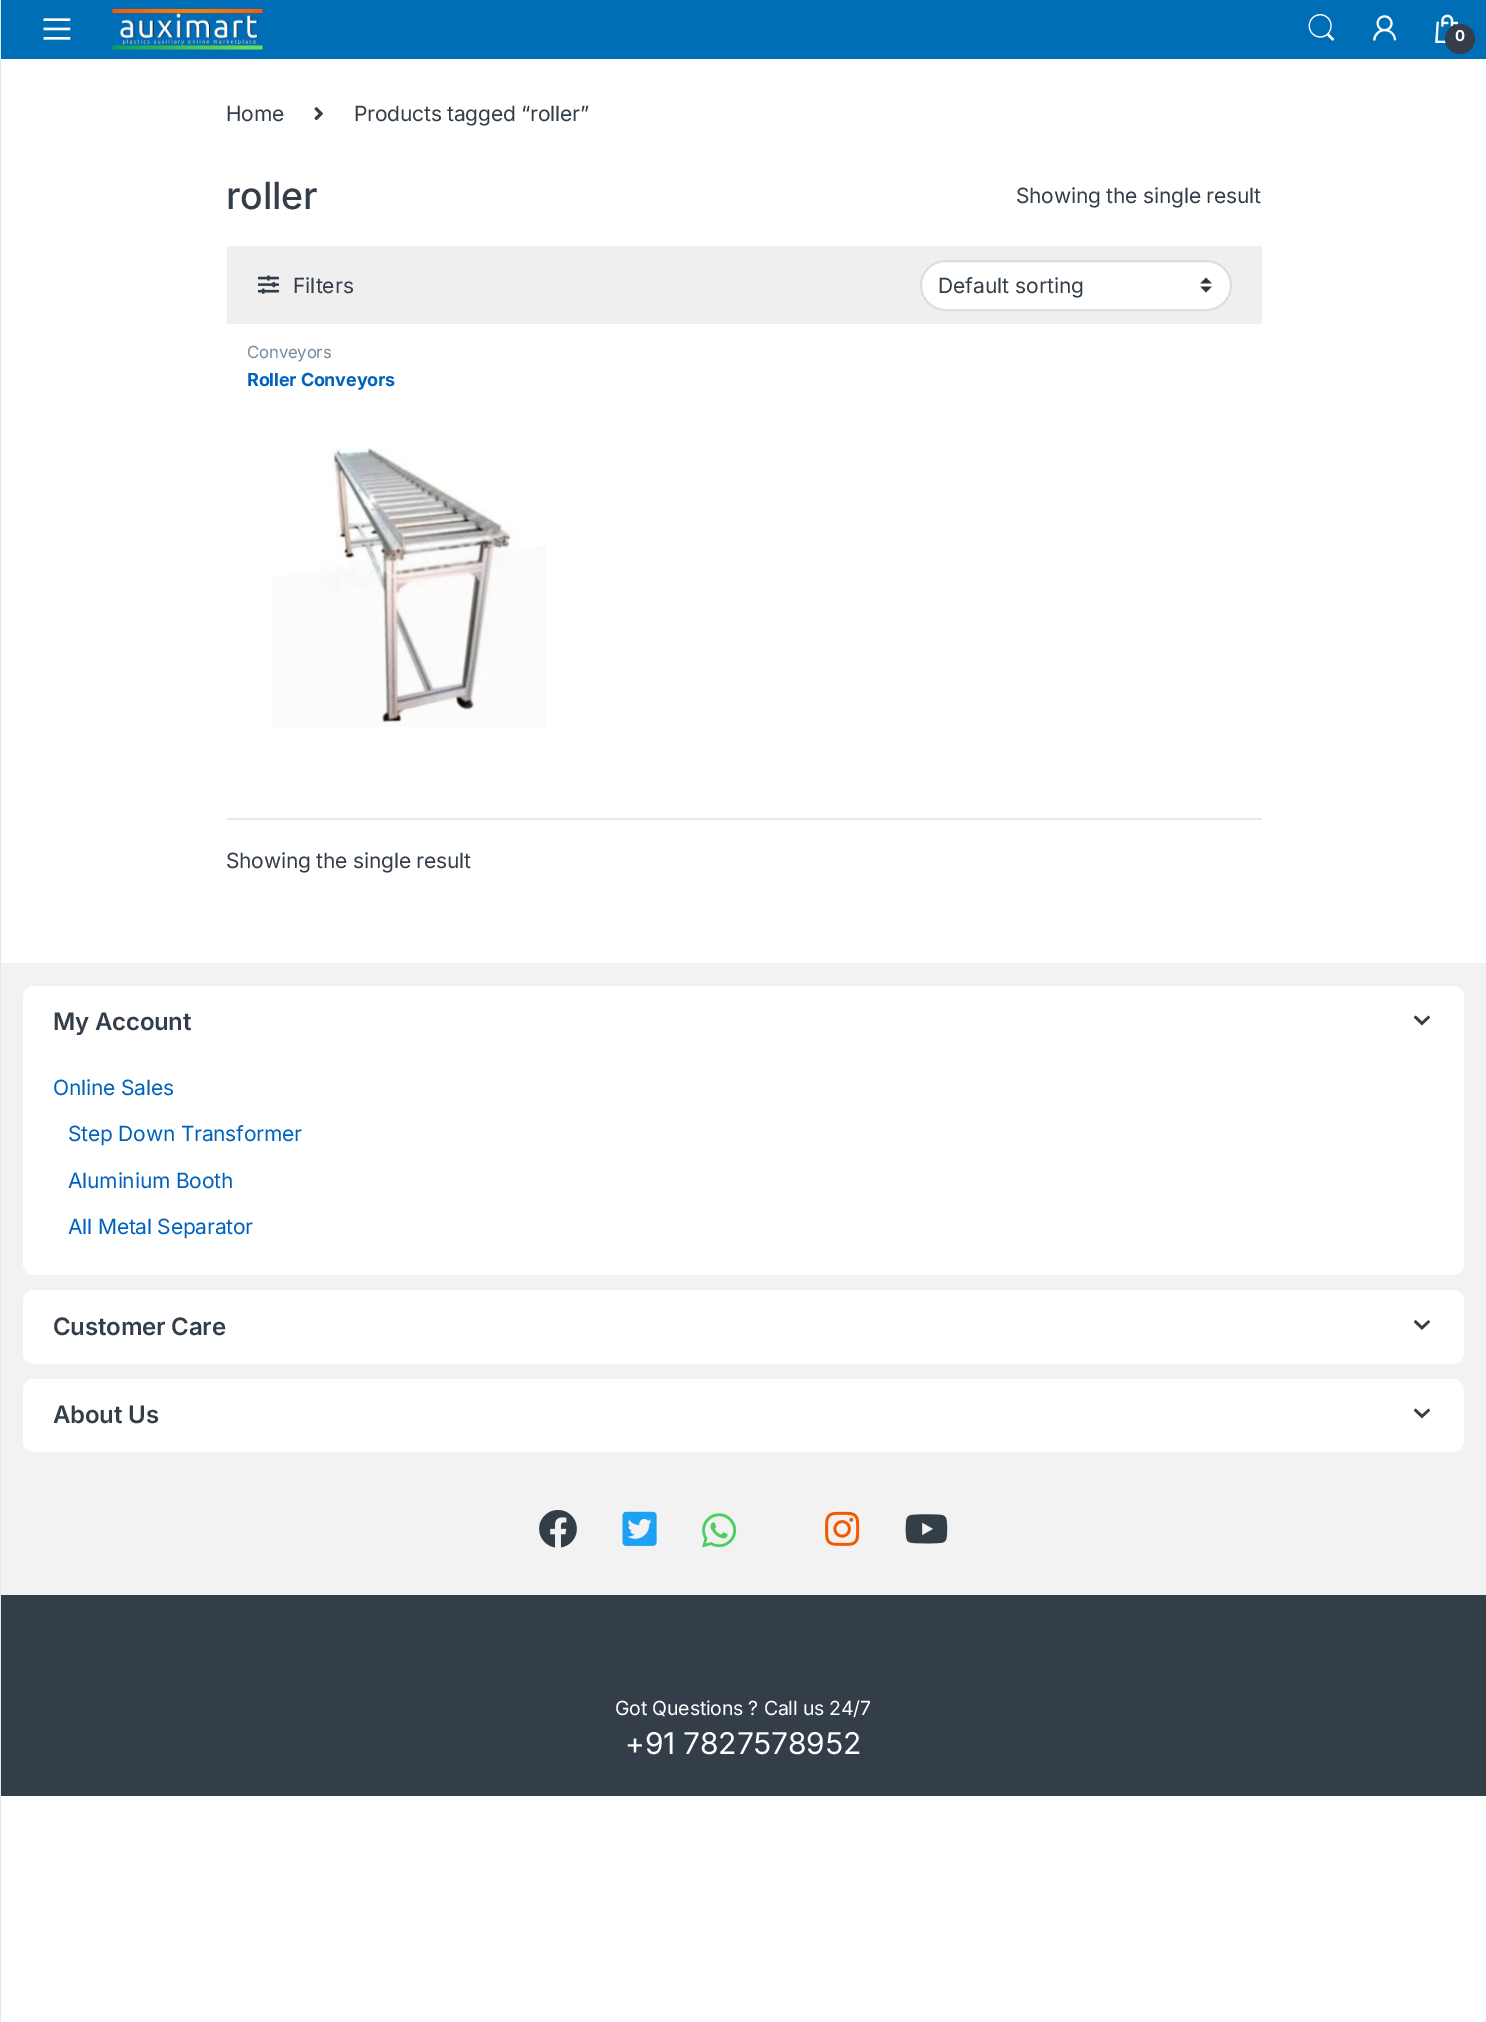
%!PS-Adobe-3.0
%%BoundingBox: 0 0 1486 2022
%%LanguageLevel: 3
%%Pages: 1
%%EndComments
%%BeginProlog
/rrect { 5 dict begin { /r /h /w /y /x } { exch def } forall
  x r add y moveto x w add y 2 copy h add r arct x w add y h add x 1 index r arct
  x y h add x y r arct x y 2 copy exch w add exch r arct closepath end } def
/drawimage { 5 dict begin { /h /w /y /x /name } { exch def } forall
  gsave x y translate w h scale
  w h 8 [w 0 0 h 0 0] name (r) file false 3 colorimage grestore end } def
%%EndProlog
%%BeginSetup
<< /PageSize [1486 2022] >> setpagedevice
%%EndSetup
%%Page: 1 1
0 2022 translate 1 -1 scale
4 setmiterlimit
1 setgray
0 0 1486 2022 rectfill
0 0.431 0.714 setrgbcolor
1 0 1485 59 rectfill
0.89 0.914 0.937 setrgbcolor
0 0 1 2022 rectfill
(images/1.raw) 43 18 28 22 drawimage
(images/2.raw) 112 9 151 41 drawimage
(images/3.raw) 1308 14 27 27 drawimage
(images/4.raw) 1373 15 24 26 drawimage
(images/5.raw) 1435 14 24 29 drawimage
0.2 0.243 0.282 setrgbcolor
newpath 1460 39 15 0 360 arc closepath fill
(images/6.raw) 314 107 9 14 drawimage
0.937 setgray
227 246 1035 78 rectfill
0.937 0.925 0.925 setrgbcolor
2 setlinewidth
258 267 97 37 rectstroke
(images/7.raw) 258 275 21 19 drawimage
1 setgray
920 260 312 51 25.5 rrect fill
(images/8.raw) 1200 277 12 16 drawimage
0.867 setgray
921 261 310 49 24.5 rrect stroke
(images/9.raw) 272 447 274 280 drawimage
0.906 setgray
227 818 1035 2 rectfill
0.949 setgray
1 963 1485 632 rectfill
1 setgray
23 986 1441 289 11 rrect fill
(images/10.raw) 1413 1015 17 11 drawimage
23 1290 1441 74 11 rrect fill
(images/11.raw) 1414 1320 16 10 drawimage
23 1379 1441 73 11 rrect fill
(images/10.raw) 1413 1408 17 11 drawimage
(images/12.raw) 539 1510 38 38 drawimage
(images/13.raw) 622 1511 35 35 drawimage
(images/14.raw) 702 1513 35 35 drawimage
(images/15.raw) 825 1511 35 35 drawimage
(images/16.raw) 905 1514 43 30 drawimage
0.2 0.243 0.282 setrgbcolor
1 1595 1485 201 rectfill
/Inter-Bold [15 0 0 -15 0 0] selectfont
1 setgray
1455 41 moveto -0.2 0 (0) ashow
/Inter-Regular [21 0 0 -21 0 0] selectfont
0.2 0.243 0.282 setrgbcolor
226 121 moveto -0.2 0 (Home) ashow
354 121 moveto -0.2 0 (Products tagged “roller”) ashow
/Inter-Medium [37.5 0 0 -37.5 0 0] selectfont
226 209 moveto -0.2 0 (roller) ashow
/Inter-Regular [21 0 0 -21 0 0] selectfont
1016 203 moveto -0.2 0 (Showing the single result) ashow
293 293 moveto (Filters) show
938 293 moveto (Default sorting) show
gsave
248 345 303 18 rectclip
/Inter-Regular [16.75 0 0 -16.75 0 0] selectfont
0.463 0.545 0.62 setrgbcolor
247 358 moveto -0.2 0 (Conveyors) ashow
grestore
gsave
248 371 303 42 rectclip
/Inter-Bold [18 0 0 -18 0 0] selectfont
0 0.384 0.741 setrgbcolor
247 386 moveto -0.2 0 (Roller Conveyors) ashow
grestore
226 868 moveto -0.2 0 (Showing the single result) ashow
/Inter-SemiBold [24 0 0 -24 0 0] selectfont
53 1030 moveto -0.2 0 (My Account) ashow
/Inter-Regular [21 0 0 -21 0 0] selectfont
0 0.384 0.741 setrgbcolor
53 1095 moveto -0.2 0 (Online Sales) ashow
68 1141 moveto -0.2 0 (Step Down Transformer) ashow
68 1188 moveto -0.2 0 (Aluminium Booth) ashow
68 1234 moveto -0.2 0 (All Metal Separator) ashow
/Inter-SemiBold [24 0 0 -24 0 0] selectfont
0.2 0.243 0.282 setrgbcolor
53 1335 moveto -0.2 0 (Customer Care) ashow
53 1423 moveto -0.2 0 (About Us) ashow
/Inter-Regular [19.5 0 0 -19.5 0 0] selectfont
1 setgray
615 1715 moveto -0.2 0 (Got Questions ? Call us 24/7) ashow
/Inter-Regular [30 0 0 -30 0 0] selectfont
625 1754 moveto -0.2 0 (+91 7827578952) ashow
showpage
%%EOF
